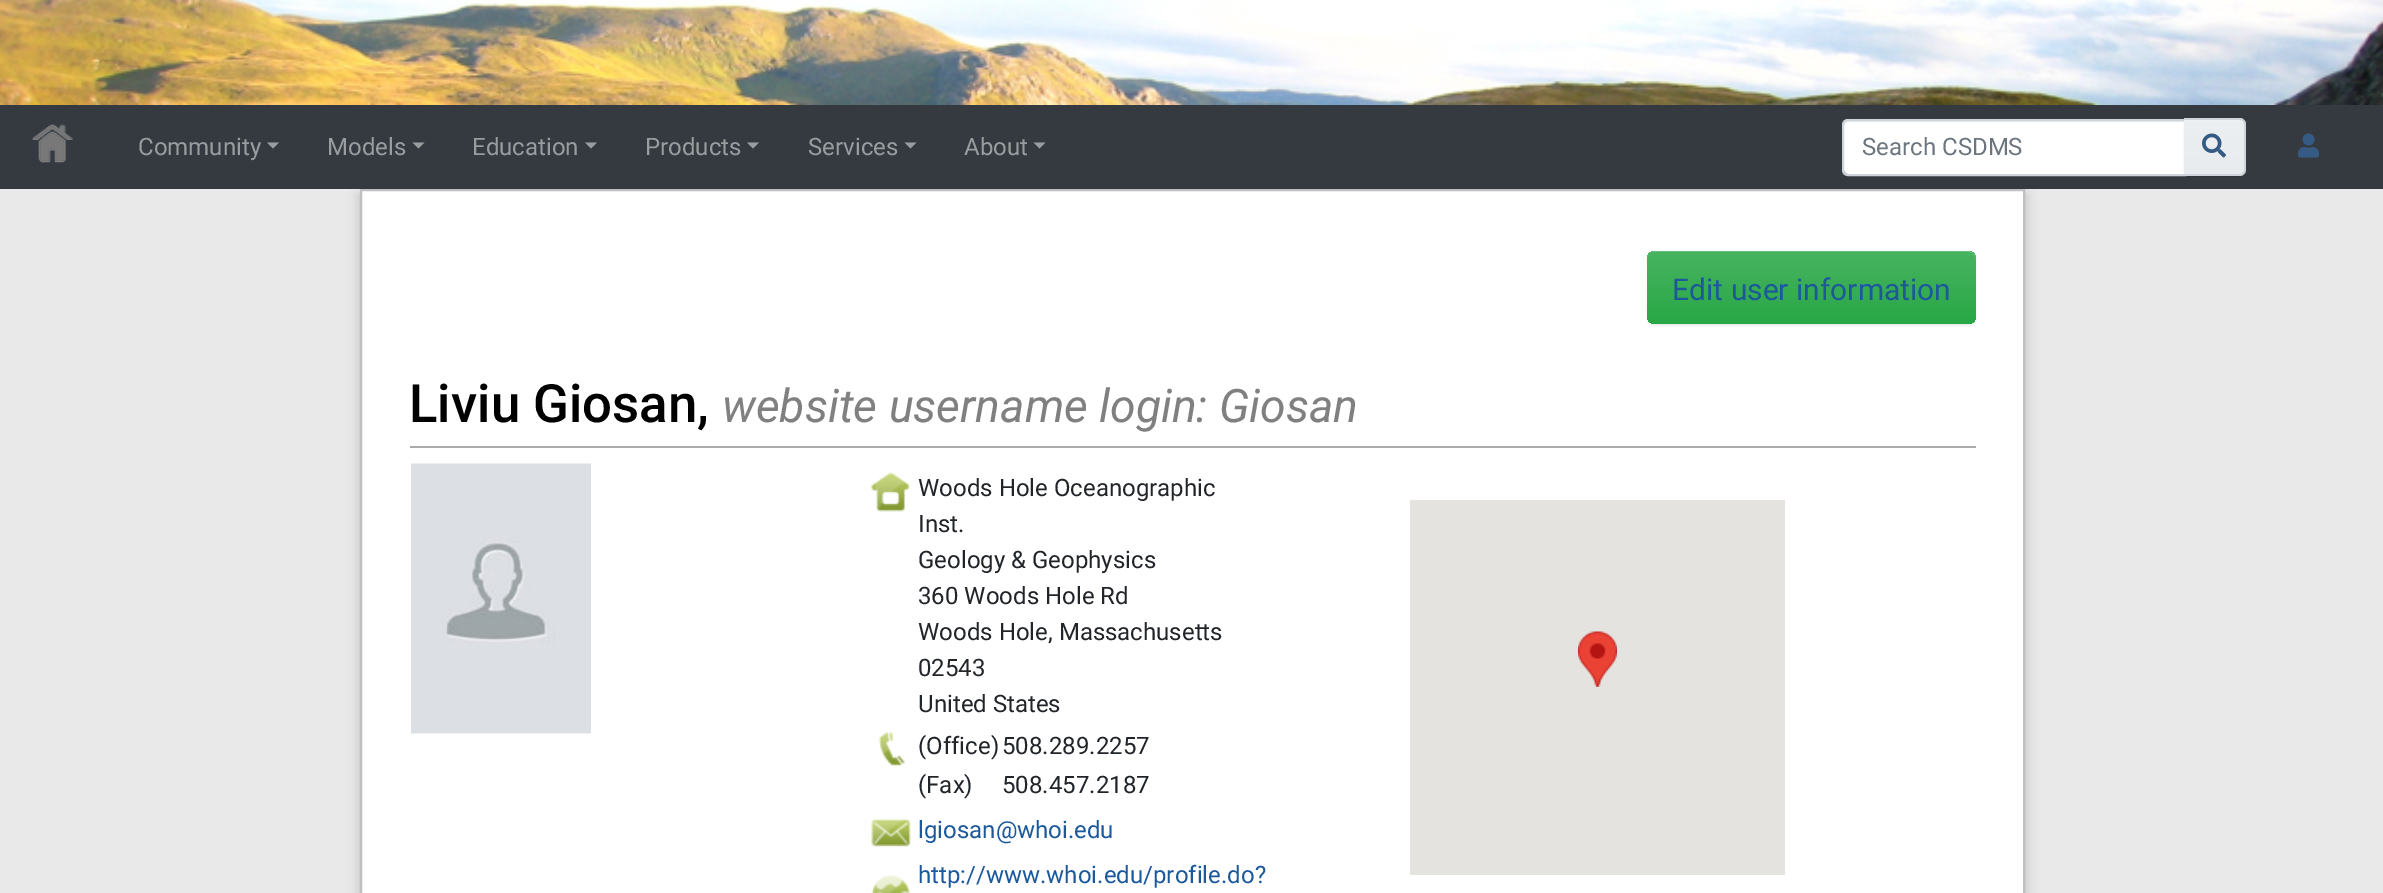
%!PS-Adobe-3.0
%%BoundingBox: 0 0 2383 893
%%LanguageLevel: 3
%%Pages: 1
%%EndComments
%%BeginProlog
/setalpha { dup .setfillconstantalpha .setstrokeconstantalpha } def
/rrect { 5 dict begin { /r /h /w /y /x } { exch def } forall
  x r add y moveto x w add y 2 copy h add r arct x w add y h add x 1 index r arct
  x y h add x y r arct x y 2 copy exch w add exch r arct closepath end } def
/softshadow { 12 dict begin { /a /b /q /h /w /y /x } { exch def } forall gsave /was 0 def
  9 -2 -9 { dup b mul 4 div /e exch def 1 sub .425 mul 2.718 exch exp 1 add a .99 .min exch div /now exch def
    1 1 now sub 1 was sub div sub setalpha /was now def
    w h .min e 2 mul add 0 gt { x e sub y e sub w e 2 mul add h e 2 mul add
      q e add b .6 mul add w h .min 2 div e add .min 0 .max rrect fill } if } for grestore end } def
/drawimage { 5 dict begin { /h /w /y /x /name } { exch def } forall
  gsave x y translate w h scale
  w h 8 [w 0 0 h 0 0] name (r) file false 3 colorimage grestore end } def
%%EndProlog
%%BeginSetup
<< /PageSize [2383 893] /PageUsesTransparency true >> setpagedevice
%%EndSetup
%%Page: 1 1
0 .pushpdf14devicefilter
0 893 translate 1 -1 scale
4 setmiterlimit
0.914 setgray
0 0 2383 893 rectfill
(images/1.raw) 0 0 2383 105 drawimage
0.204 0.227 0.251 setrgbcolor
0 105 2383 84 rectfill
(images/2.raw) 32 124 41 39 drawimage
0.604 0.616 0.627 setrgbcolor
newpath 267 142.5 moveto 279 142.5 lineto 273 148.5 lineto closepath fill
newpath 412.5 142.5 moveto 424.5 142.5 lineto 418.5 148.5 lineto closepath fill
newpath 585 142.5 moveto 597 142.5 lineto 591 148.5 lineto closepath fill
newpath 747 142.5 moveto 759 142.5 lineto 753 148.5 lineto closepath fill
newpath 904.5 142.5 moveto 916.5 142.5 lineto 910.5 148.5 lineto closepath fill
newpath 1033.5 142.5 moveto 1045.5 142.5 lineto 1039.5 148.5 lineto closepath fill
1 setgray
newpath 1849 120 moveto 2184 120 lineto 2184 174 lineto 1849 174 lineto 1846 174 1844 172 1844 169 curveto 1844 125 lineto 1844 122 1846 120 1849 120 curveto closepath fill
0.07 setalpha
0 setgray
newpath 1848 122 moveto 2184 122 lineto 2184 120 lineto 1849 120 lineto 1846 120 1844 123 1844 126 curveto 1844 124 1846 122 1848 122 curveto closepath fill
1 setalpha
0.808 0.831 0.855 setrgbcolor
2 setlinewidth
newpath 1848 120 moveto 2185 120 lineto 2185 175 lineto 1848 175 lineto 1845 175 1843 173 1843 170 curveto 1843 125 lineto 1843 122 1845 120 1848 120 curveto closepath stroke
0 setgray
2184 120 62 57 6 1 0.07 softshadow
gsave newpath 2184 120 moveto 2239 120 lineto 2242 120 2244 122 2244 125 curveto 2244 169 lineto 2244 172 2242 174 2239 174 curveto 2184 174 lineto closepath clip newpath
<< /ShadingType 2 /ColorSpace /DeviceRGB /Coords [2214 120 2214 174] /Extend [true true] /Function << /FunctionType 2 /Domain [0 1] /C0 [0.925 0.937 0.945] /C1 [0.914 0.925 0.937] /N 1 >> >> shfill grestore
0.15 setalpha
1 setgray
newpath 2184 122 moveto 2240 122 lineto 2242 122 2244 124 2244 126 curveto 2244 125 lineto 2244 122 2242 120 2239 120 curveto 2184 120 lineto closepath fill
1 setalpha
0.808 0.831 0.855 setrgbcolor
newpath 2184 118 moveto 2240 118 lineto 2243 118 2246 121 2246 124 curveto 2246 170 lineto 2246 173 2243 176 2240 176 curveto 2184 176 lineto closepath 2184 120 moveto 2240 120 lineto 2242 120 2244 122 2244 124 curveto 2244 170 lineto 2244 172 2242 174 2240 174 curveto 2184 174 lineto closepath eofill
(images/3.raw) 2202 133 24 25 drawimage
(images/4.raw) 2298 133 21 25 drawimage
0 setgray
360 195 1665 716 0 6 0.2 softshadow
1 setgray
newpath 361 190 moveto 2024 190 lineto 2024 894 lineto 361 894 lineto closepath gsave fill grestore
0.753 setgray
stroke
0 setgray
1647 252 329 74 8 1 0.07 softshadow
gsave 1647 251 329 73 8 rrect clip newpath
<< /ShadingType 2 /ColorSpace /DeviceRGB /Coords [1811 251 1811 324] /Extend [true true] /Function << /FunctionType 2 /Domain [0 1] /C0 [0.282 0.706 0.38] /C1 [0.157 0.655 0.271] /N 1 >> >> shfill grestore
0.388 0.749 0.475 setrgbcolor
newpath 1654 252 moveto 1968 252 lineto 1972 252 1976 255 1976 259 curveto 1976 255 1972 251 1968 251 curveto 1655 251 lineto 1651 251 1647 255 1647 259 curveto 1647 255 1650 252 1654 252 curveto closepath fill
0.667 setgray
410 446 1566 2 rectfill
(images/5.raw) 411 463 180 271 drawimage
(images/6.raw) 871 472 39 40 drawimage
(images/7.raw) 878 731 27 35 drawimage
(images/8.raw) 871 818 40 29 drawimage
(images/9.raw) 871 874 40 19 drawimage
0.898 0.89 0.875 setrgbcolor
1410 500 375 375 rectfill
(images/10.raw) 1578 631 39 56 drawimage
/Roboto-Regular [24 0 0 -24 0 0] selectfont
0.604 0.616 0.627 setrgbcolor
138 155 moveto (Community) show
327 155 moveto (Models) show
472 155 moveto (Education) show
645 155 moveto (Products) show
808 155 moveto (Services) show
964 155 moveto (About) show
0.424 0.459 0.49 setrgbcolor
1862 155 moveto (Search CSDMS) show
/Roboto-Regular [30 0 0 -30 0 0] selectfont
0.106 0.349 0.608 setrgbcolor
1672 300 moveto (Edit user information) show
/Roboto-Medium [52.75 0 0 -52.75 0 0] selectfont
0 setgray
409 422 moveto (Liviu Giosan,) show
/Roboto-Italic [46.25 0 0 -46.25 0 0] selectfont
0.502 setgray
722 422 moveto (website username login: Giosan) show
/Roboto-Regular [24 0 0 -24 0 0] selectfont
0.129 0.145 0.161 setrgbcolor
918 496 moveto (Woods Hole Oceanographic) show
918 532 moveto (Inst.) show
918 568 moveto (Geology & Geophysics) show
918 604 moveto (360 Woods Hole Rd) show
918 640 moveto (Woods Hole, Massachusetts) show
918 676 moveto (02543) show
918 712 moveto (United States) show
918 754 moveto (\(Office\)) show
1002 754 moveto (508.289.2257) show
918 793 moveto (\(Fax\)) show
1002 793 moveto (508.457.2187) show
0.106 0.349 0.608 setrgbcolor
918 838 moveto (lgiosan@whoi.edu) show
918 883 moveto (http://www.whoi.edu/profile.do?) show
.poppdf14devicefilter showpage
%%EOF
